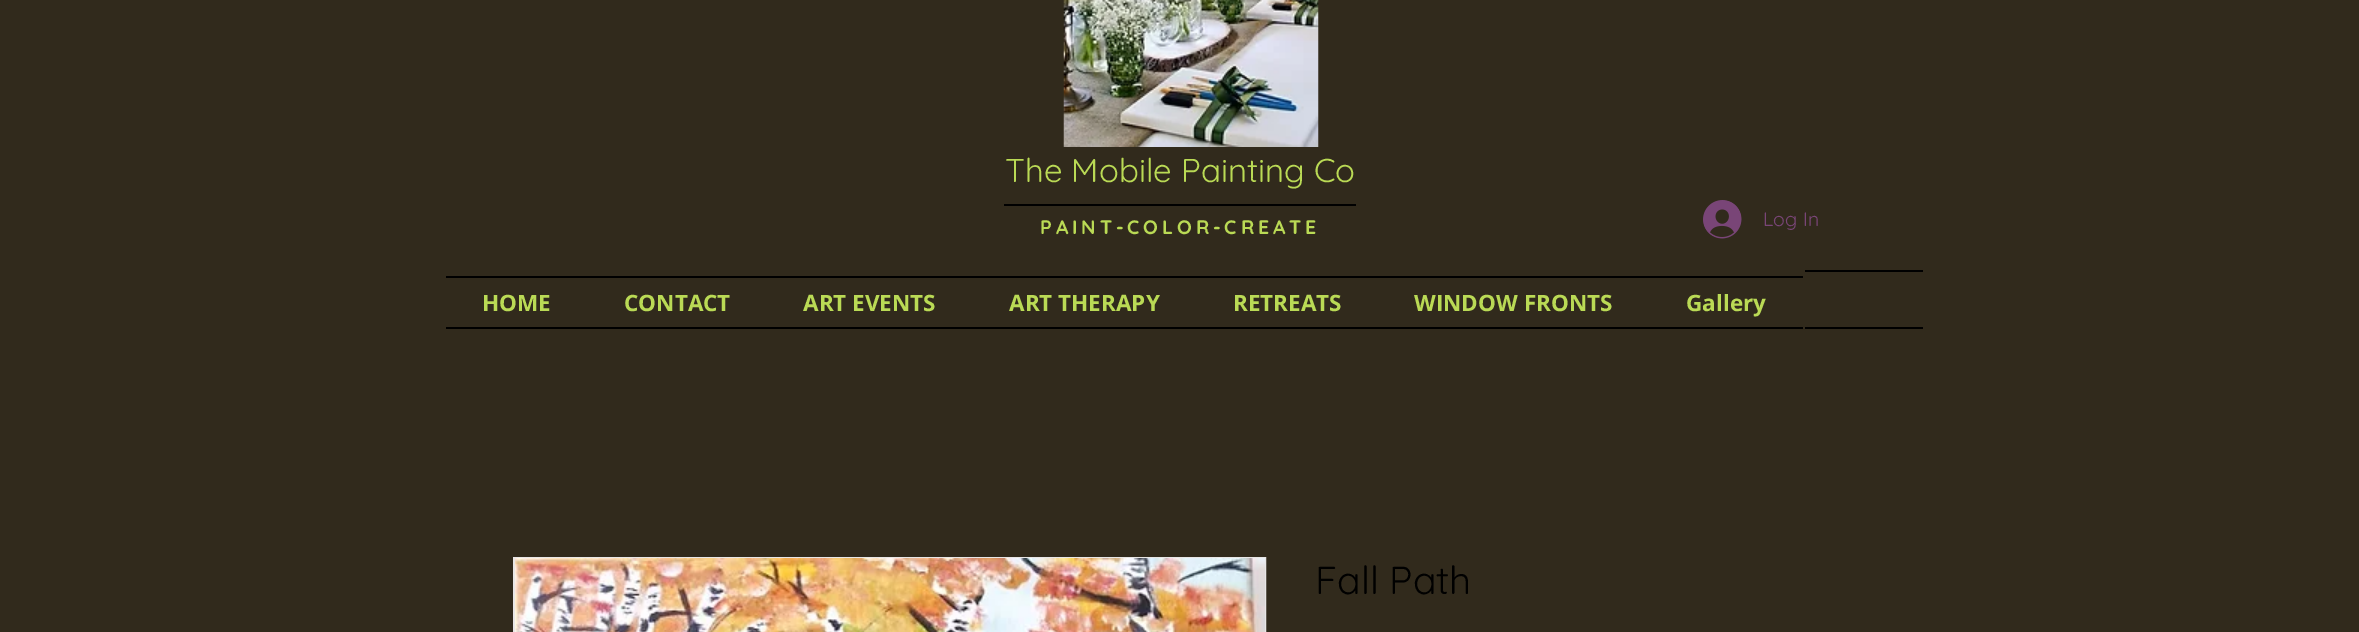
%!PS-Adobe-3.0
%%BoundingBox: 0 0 2359 632
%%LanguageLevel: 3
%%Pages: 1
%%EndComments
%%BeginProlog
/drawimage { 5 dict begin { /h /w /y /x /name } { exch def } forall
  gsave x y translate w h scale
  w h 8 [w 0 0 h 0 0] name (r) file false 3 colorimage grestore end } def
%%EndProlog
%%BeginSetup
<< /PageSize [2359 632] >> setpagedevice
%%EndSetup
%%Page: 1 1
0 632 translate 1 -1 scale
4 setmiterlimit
0.192 0.165 0.11 setrgbcolor
0 0 2359 632 rectfill
(images/1.raw) 1063 0 256 147 drawimage
0 setgray
1004 204 352 2 rectfill
(images/2.raw) 1703 200 39 39 drawimage
1805 270 118 2 rectfill
446 276 1357 2 rectfill
446 327 1357 2 rectfill
1805 327 118 2 rectfill
0.91 0.902 0.902 setrgbcolor
2 setlinewidth
514 558 751 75 rectstroke
(images/3.raw) 515 558 750 74 drawimage
/Quicksand-Regular [33 0 0 -33 0 0] selectfont
0.729 0.855 0.333 setrgbcolor
1005 182 moveto (The Mobile Painting Co) show
/Quicksand-Bold [19.5 0 0 -19.5 0 0] selectfont
1040 234 moveto 3.9 0 (PAINT-COLOR-CREATE) ashow
/Quicksand-Regular [19.5 0 0 -19.5 0 0] selectfont
0.475 0.271 0.467 setrgbcolor
1763 226 moveto (Log In) show
/OpenSans-Bold [22.5 0 0 -22.5 0 0] selectfont
0.729 0.855 0.333 setrgbcolor
482 311 moveto (HOME) show
624 311 moveto (CONTACT) show
803 311 moveto (ART EVENTS) show
1009 311 moveto (ART THERAPY) show
1233 311 moveto (RETREATS) show
1414 311 moveto (WINDOW FRONTS) show
1686 311 moveto (Gallery) show
/Quicksand-Regular [39 0 0 -39 0 0] selectfont
0 setgray
1315 594 moveto (Fall Path) show
showpage
%%EOF
